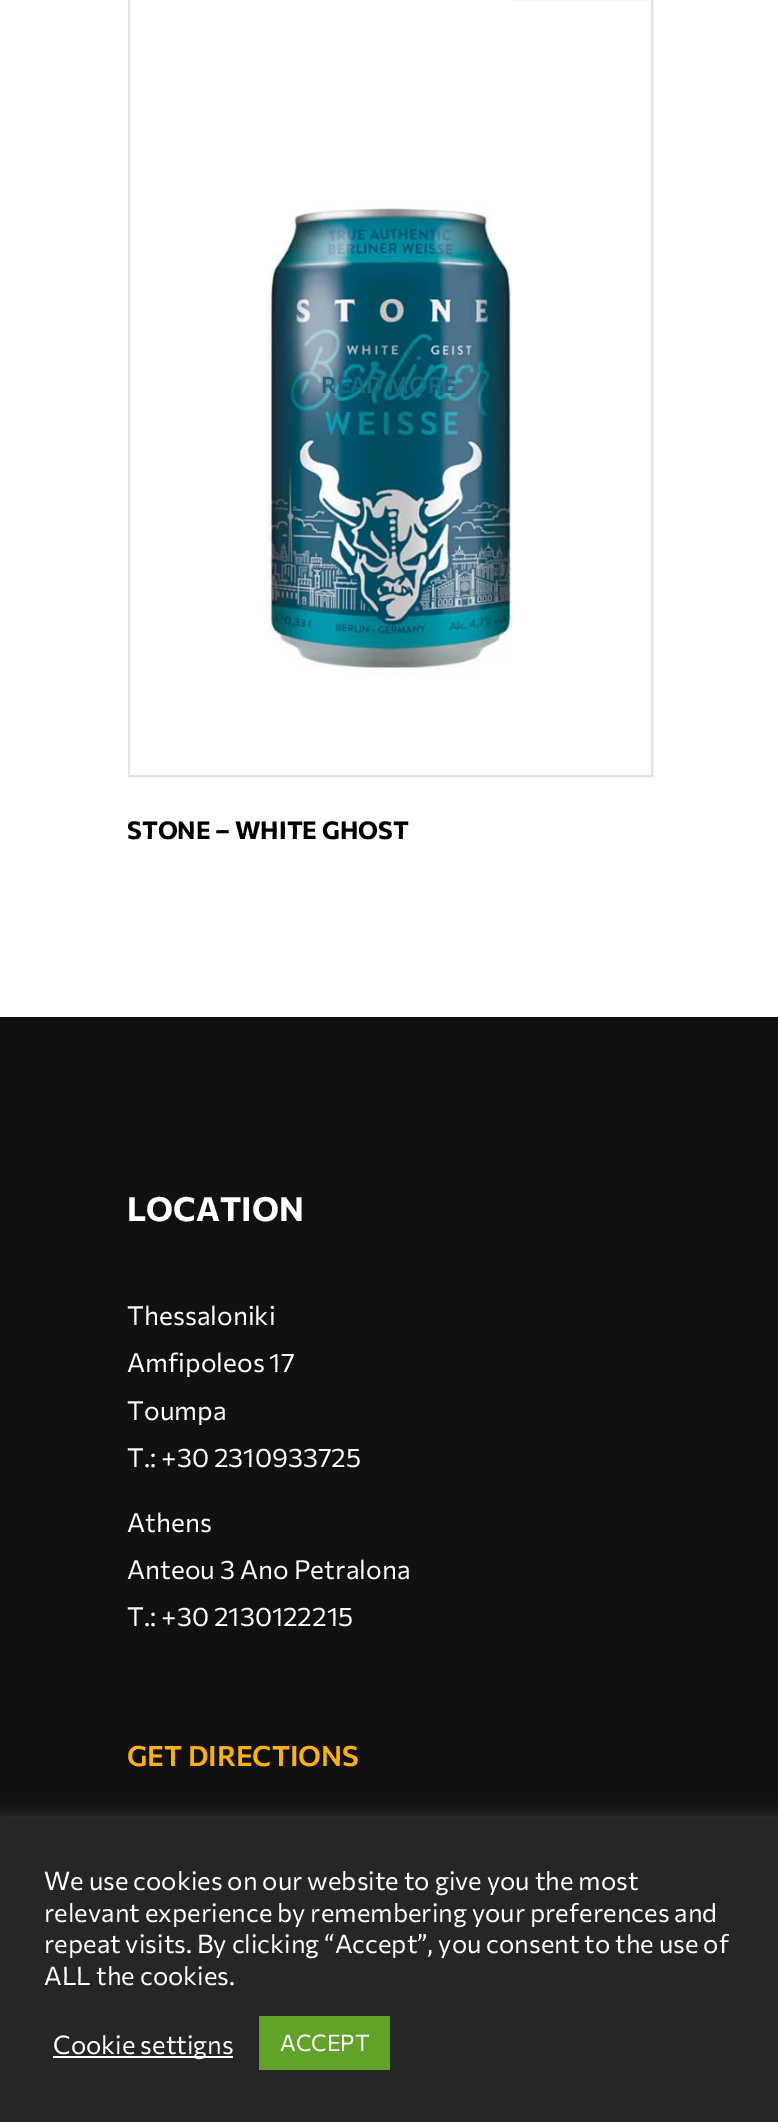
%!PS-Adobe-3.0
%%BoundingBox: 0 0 778 2122
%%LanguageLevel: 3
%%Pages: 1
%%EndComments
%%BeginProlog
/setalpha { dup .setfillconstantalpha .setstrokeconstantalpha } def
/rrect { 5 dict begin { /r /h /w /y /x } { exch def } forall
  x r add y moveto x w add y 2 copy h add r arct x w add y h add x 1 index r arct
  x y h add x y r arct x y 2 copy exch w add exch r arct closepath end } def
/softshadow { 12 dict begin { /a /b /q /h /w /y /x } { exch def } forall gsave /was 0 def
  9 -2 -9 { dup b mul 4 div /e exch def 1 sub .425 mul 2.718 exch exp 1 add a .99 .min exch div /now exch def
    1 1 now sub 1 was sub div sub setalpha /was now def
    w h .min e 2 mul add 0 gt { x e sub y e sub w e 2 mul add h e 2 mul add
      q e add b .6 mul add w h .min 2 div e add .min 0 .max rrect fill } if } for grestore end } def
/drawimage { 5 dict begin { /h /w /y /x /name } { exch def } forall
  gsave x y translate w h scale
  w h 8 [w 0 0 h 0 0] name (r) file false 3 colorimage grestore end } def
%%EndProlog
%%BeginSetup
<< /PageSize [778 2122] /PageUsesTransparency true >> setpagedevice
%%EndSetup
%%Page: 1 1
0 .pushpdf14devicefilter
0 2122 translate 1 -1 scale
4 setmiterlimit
1 setgray
0 0 778 2122 rectfill
0.882 setgray
2 setlinewidth
129 -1 523 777 rectstroke
(images/1.raw) 129 0 383 775 drawimage
0.067 setgray
0 1017 778 803 rectfill
0.675 0.671 0.671 setrgbcolor
0 1818 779 303 0 9 0.3 softshadow
0.149 setgray
0 1820 778 302 rectfill
1 setgray
53 2056 180 2 rectfill
0.38 0.635 0.161 setrgbcolor
259 2016 131 54 rectfill
/Commissioner-SemiBold [22.75 0 0 -22.75 0 0] selectfont
0.098 0.416 0.498 setrgbcolor
321 393 moveto (READ MORE) show
/Commissioner-Bold [24.5 0 0 -24.5 0 0] selectfont
0 setgray
127 839 moveto (STONE – WHITE GHOST) show
/Commissioner-Bold [33.25 0 0 -33.25 0 0] selectfont
1 setgray
127 1221 moveto (LOCATION) show
/Commissioner-Regular [26.25 0 0 -26.25 0 0] selectfont
127 1325 moveto (Thessaloniki) show
127 1372 moveto (Amfipoleos 17) show
127 1420 moveto (Toumpa) show
127 1467 moveto (Τ.: +30 2310933725) show
127 1532 moveto (Athens) show
127 1579 moveto (Anteou 3 Ano Petralona) show
127 1626 moveto (T.: +30 2130122215) show
/Commissioner-SemiBold [28 0 0 -28 0 0] selectfont
0.988 0.698 0.043 setrgbcolor
127 1766 moveto (GET DIRECTIONS) show
/Commissioner-Regular [25.7 0 0 -25.7 0 0] selectfont
1 setgray
44 1890 moveto (We use cookies on our website to give you the most) show
44 1922 moveto (relevant experience by remembering your preferences and) show
44 1953 moveto (repeat visits. By clicking “Accept”, you consent to the use of) show
44 1985 moveto (ALL the cookies.) show
53 2054 moveto (Cookie settigns) show
/Commissioner-Regular [22.75 0 0 -22.75 0 0] selectfont
280 2051 moveto (ACCEPT) show
.poppdf14devicefilter showpage
%%EOF
